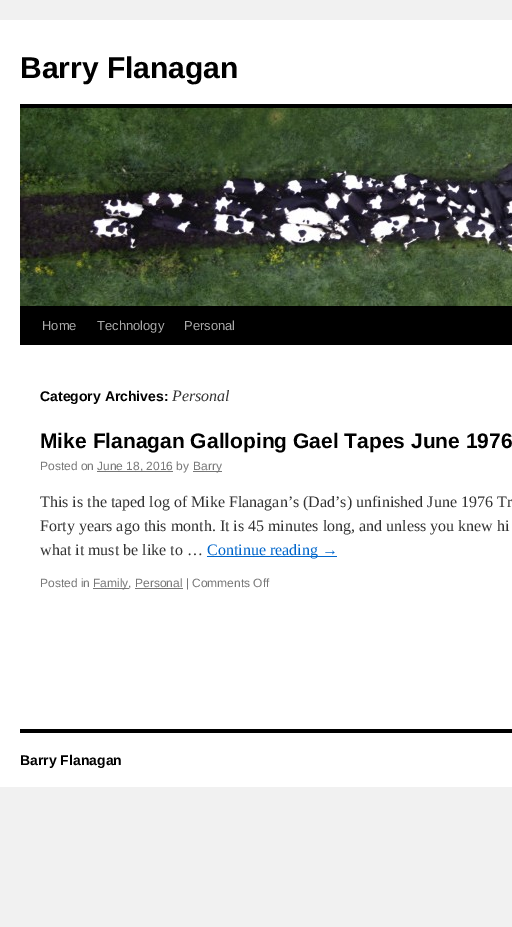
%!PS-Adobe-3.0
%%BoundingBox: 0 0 512 927
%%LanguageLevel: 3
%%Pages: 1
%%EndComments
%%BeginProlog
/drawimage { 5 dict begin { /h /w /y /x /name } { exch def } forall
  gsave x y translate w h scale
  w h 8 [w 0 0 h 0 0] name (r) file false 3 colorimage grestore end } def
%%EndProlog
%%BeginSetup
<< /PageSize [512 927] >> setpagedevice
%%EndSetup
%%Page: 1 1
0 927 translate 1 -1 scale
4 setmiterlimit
0.945 setgray
0 0 512 927 rectfill
1 setgray
0 20 512 767 rectfill
0 setgray
20 104 492 4 rectfill
20 306 492 39 rectfill
(images/1.raw) 20 108 492 198 drawimage
0.467 setgray
97 471 76 1 rectfill
193 471 29 1 rectfill
0 0.4 0.8 setrgbcolor
207 556 130 1 rectfill
0.467 setgray
93 588 36 1 rectfill
135 588 48 1 rectfill
0 setgray
20 729 492 4 rectfill
/LiberationSans-Bold [30 0 0 -30 0 0] selectfont
20 78 moveto (Barry Flanagan) show
/LiberationSans-Regular [13 0 0 -13 0 0] selectfont
0.667 setgray
42 330 moveto (Home) show
97 330 moveto (Technology) show
184 330 moveto (Personal) show
/LiberationSans-Bold [14 0 0 -14 0 0] selectfont
0 setgray
40 401 moveto (Category Archives:) show
/LiberationSerif-Italic [16 0 0 -16 0 0] selectfont
0.2 setgray
172 401 moveto (Personal) show
/LiberationSans-Bold [21 0 0 -21 0 0] selectfont
0 setgray
40 448 moveto (Mike Flanagan Galloping Gael Tapes June 1976) show
/LiberationSans-Regular [12 0 0 -12 0 0] selectfont
0.467 setgray
40 470 moveto (Posted on) show
97 470 moveto (June 18, 2016 by) show
193 470 moveto (Barry) show
/LiberationSerif-Regular [16 0 0 -16 0 0] selectfont
0.2 setgray
40 507 moveto (This is the taped log of Mike Flanagan’s \(Dad’s\) unfinished June 1976 Tr) show
40 531 moveto (Forty years ago this month. It is 45 minutes long, and unless you knew hi) show
40 555 moveto (what it must be like to …) show
0 0.4 0.8 setrgbcolor
207 555 moveto (Continue reading →) show
/LiberationSans-Regular [12 0 0 -12 0 0] selectfont
0.467 setgray
40 587 moveto (Posted in) show
93 587 moveto (Family, Personal | Comments Off) show
/LiberationSans-Bold [14 0 0 -14 0 0] selectfont
0 setgray
20 765 moveto (Barry Flanagan) show
showpage
%%EOF
